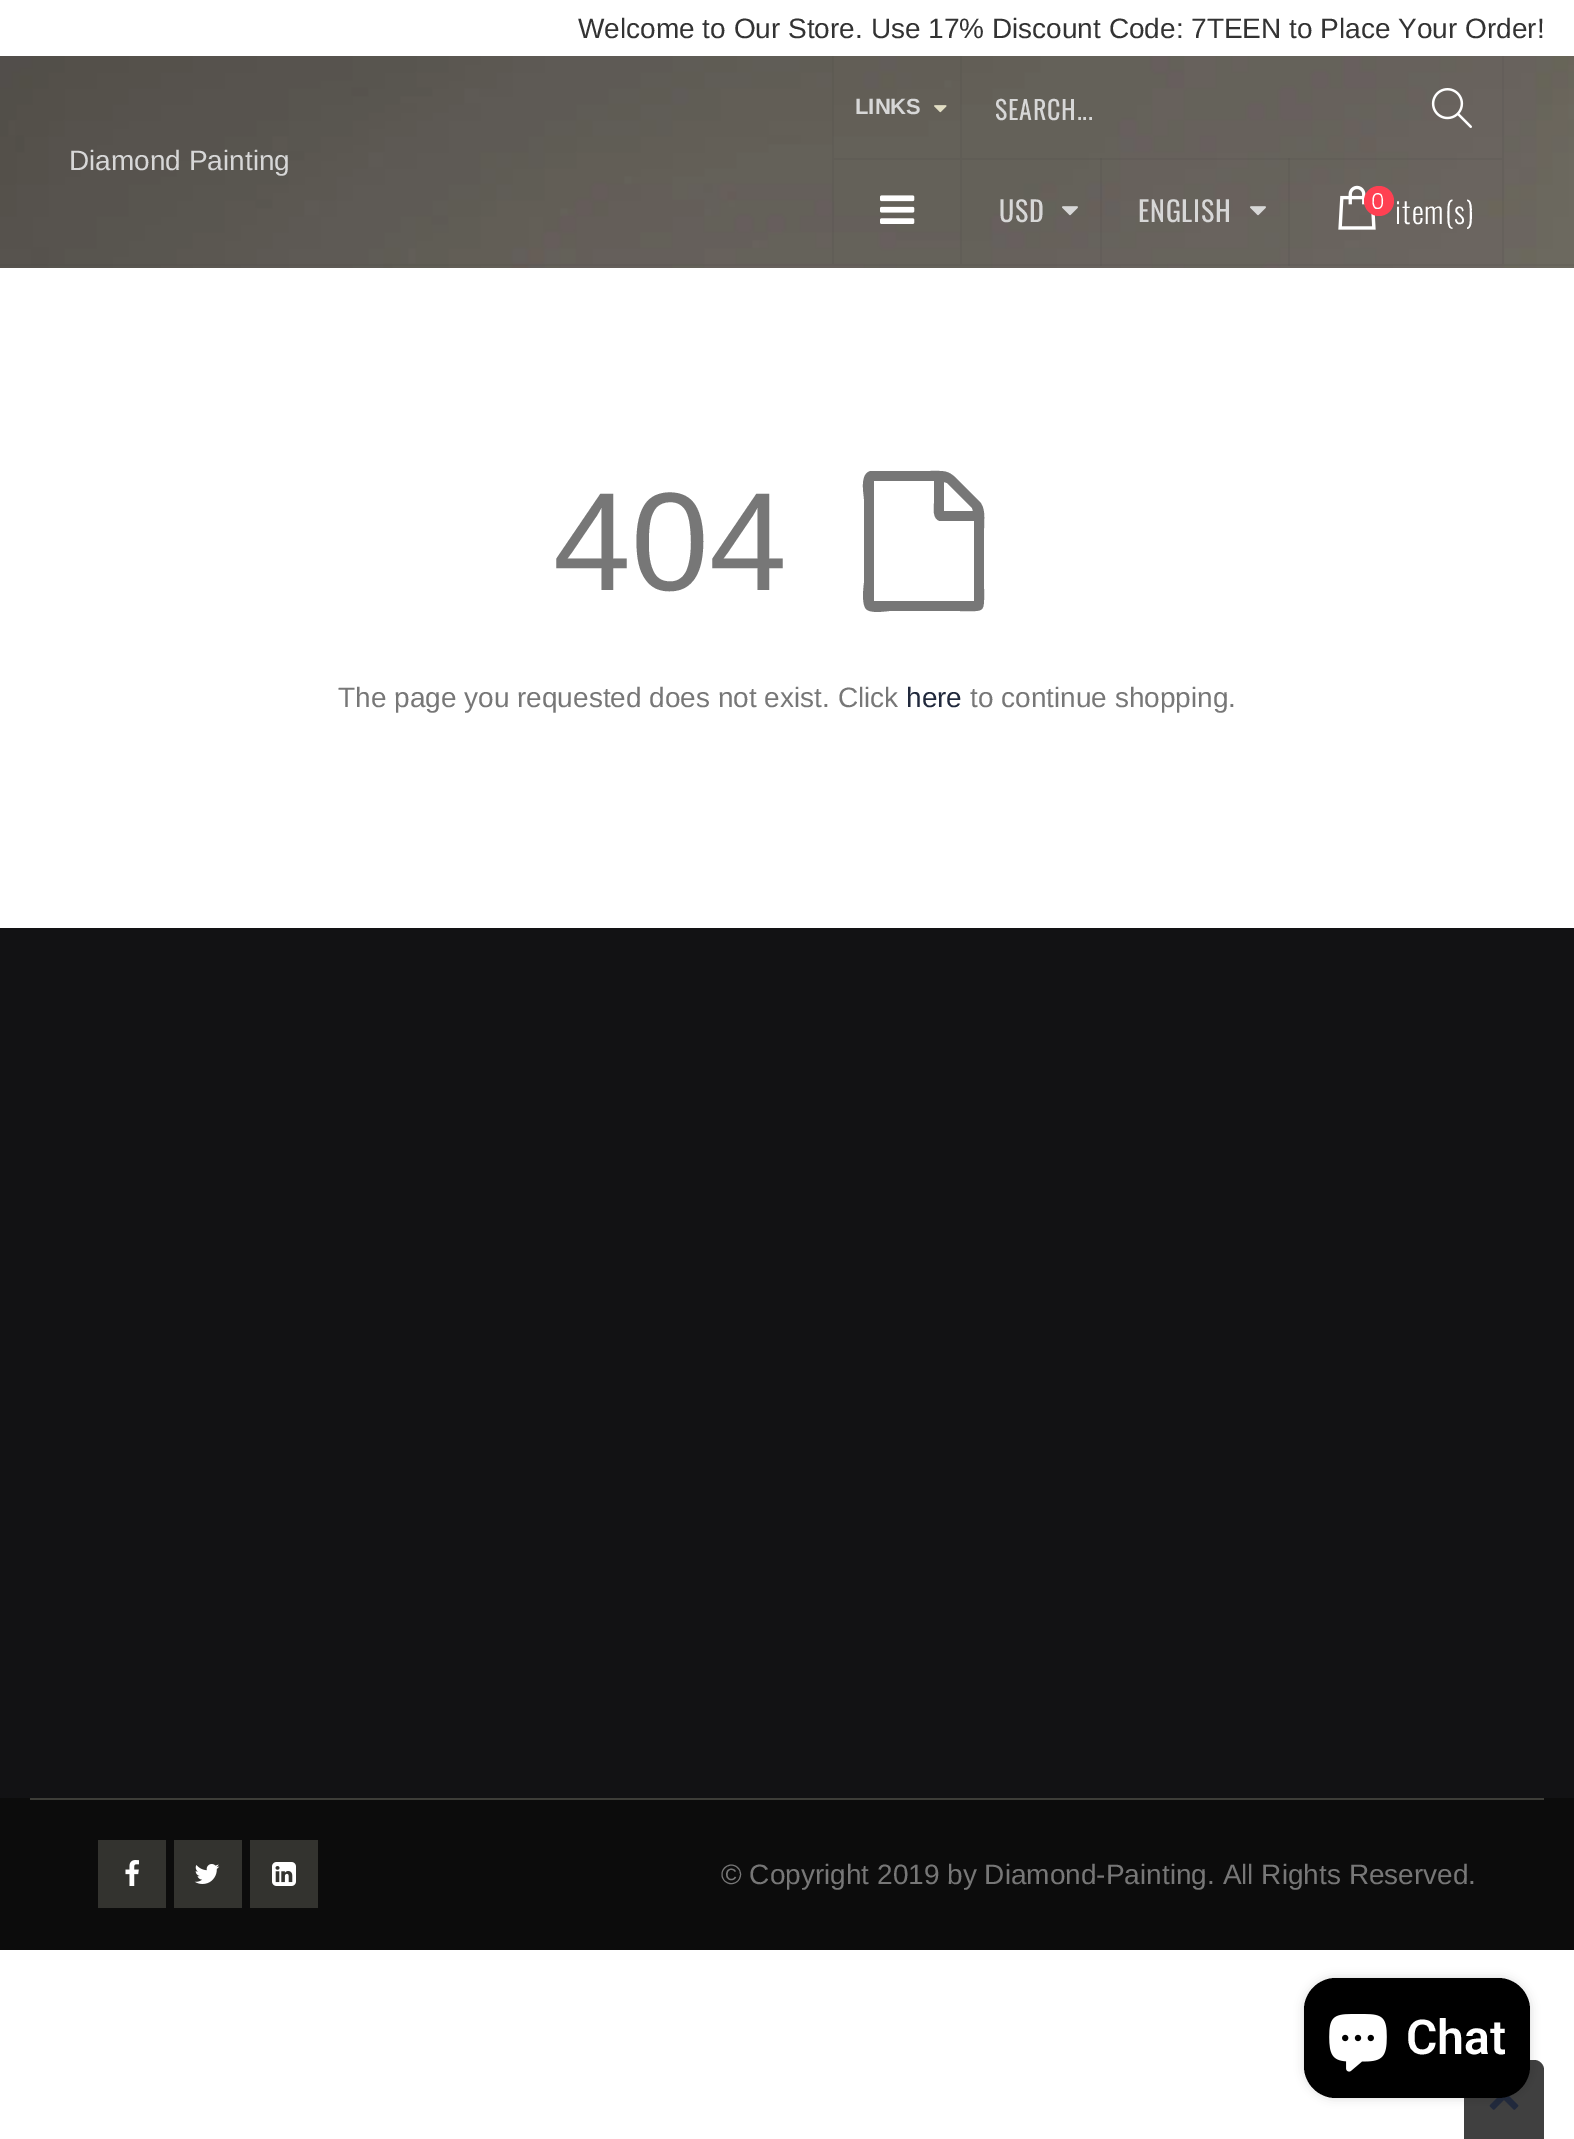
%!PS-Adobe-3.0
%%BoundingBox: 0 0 1574 2139
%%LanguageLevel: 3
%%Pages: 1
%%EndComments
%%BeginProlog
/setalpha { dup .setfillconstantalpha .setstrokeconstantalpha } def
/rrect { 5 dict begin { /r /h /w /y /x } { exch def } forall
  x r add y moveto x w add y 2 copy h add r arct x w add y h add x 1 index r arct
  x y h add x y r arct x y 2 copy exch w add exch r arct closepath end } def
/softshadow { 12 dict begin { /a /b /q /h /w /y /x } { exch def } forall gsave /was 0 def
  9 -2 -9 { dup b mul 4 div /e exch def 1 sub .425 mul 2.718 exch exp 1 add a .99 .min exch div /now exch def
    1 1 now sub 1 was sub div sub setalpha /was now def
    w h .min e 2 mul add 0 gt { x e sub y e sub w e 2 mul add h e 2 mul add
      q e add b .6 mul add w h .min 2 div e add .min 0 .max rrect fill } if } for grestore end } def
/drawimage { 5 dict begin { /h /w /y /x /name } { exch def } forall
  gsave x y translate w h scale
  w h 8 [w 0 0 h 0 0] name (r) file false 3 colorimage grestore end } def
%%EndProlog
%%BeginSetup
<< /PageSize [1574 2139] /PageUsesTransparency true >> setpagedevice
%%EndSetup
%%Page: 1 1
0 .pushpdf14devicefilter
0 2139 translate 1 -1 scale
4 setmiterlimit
1 setgray
0 0 1574 2139 rectfill
(images/1.raw) 0 56 1574 212 drawimage
0.1 setalpha
0.235 setgray
0 264 1574 2 rectfill
1502 56 2 208 rectfill
960 56 2 208 rectfill
832 56 2 208 rectfill
1 setalpha
0.376 0.365 0.337 setrgbcolor
834 158 126 2 rectfill
(images/2.raw) 934 105 13 8 drawimage
(images/3.raw) 880 195 35 29 drawimage
0.1 setalpha
0.235 setgray
962 158 540 2 rectfill
1 setalpha
(images/4.raw) 1431 88 41 40 drawimage
0.1 setalpha
1100 158 2 108 rectfill
1 setalpha
(images/5.raw) 1062 206 16 10 drawimage
0.1 setalpha
1288 158 2 108 rectfill
1 setalpha
(images/6.raw) 1250 206 16 10 drawimage
(images/7.raw) 1338 185 38 45 drawimage
1 0.251 0.322 setrgbcolor
newpath 1379 201 15 0 360 arc closepath fill
0.467 setgray
newpath 979 501 moveto 986 508 984 519 984 529 curveto 984 588 lineto 984 614 986 611 959 611 curveto 889 611 lineto 887 611 871 614 866 609 curveto 861 603 864 584 864 583 curveto 864 499 lineto 864 495 859 473 871 471 curveto 930 471 lineto 945 471 948 470 958 480 curveto closepath 944 482 moveto 944 511 lineto 973 511 lineto 972 508 lineto 947 483 lineto closepath 974 601 moveto 974 521 lineto 940 521 lineto 932 519 934 508 934 503 curveto 934 481 lineto 874 481 lineto 874 601 lineto closepath fill
0.071 0.071 0.078 setrgbcolor
0 928 1574 870 rectfill
0.047 setgray
0 1798 1574 152 rectfill
0.239 0.239 0.22 setrgbcolor
30 1798 1514 2 rectfill
0.2 0.2 0.184 setrgbcolor
98 1840 68 68 rectfill
(images/8.raw) 125 1860 14 26 drawimage
174 1840 68 68 rectfill
(images/9.raw) 194 1864 26 20 drawimage
250 1840 68 68 rectfill
(images/10.raw) 272 1862 24 24 drawimage
0.251 setgray
newpath 1474 2060 moveto 1534 2060 lineto 1539.5 2060 1544 2064.5 1544 2070 curveto 1544 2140 lineto 1464 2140 lineto 1464 2070 lineto 1464 2064.5 1468.5 2060 1474 2060 curveto closepath fill
(images/11.raw) 1489 2096 30 14 drawimage
0 setgray
1304 1978 226 120 32 5 0.15 softshadow
1304 1978 226 120 32 rrect fill
(images/12.raw) 1329 2014 58 58 drawimage
/LiberationSans-Regular [28 0 0 -28 0 0] selectfont
0.2 setgray
578 38 moveto (Welcome to Our Store. Use 17% Discount Code: 7TEEN to Place Your Order!) show
0.843 setgray
69 170 moveto (Diamond Painting) show
/LiberationSans-Bold [22 0 0 -22 0 0] selectfont
855 114 moveto (LINKS) show
/Oswald-Regular [26 0 0 -26 0 0] selectfont
995 120 moveto 0.75 0 (SEARCH...) ashow
/Oswald-Regular [28 0 0 -28 0 0] selectfont
999 222 moveto 0.75 0 (USD) ashow
1138 222 moveto 0.75 0 (ENGLISH) ashow
/Poppins-Light [22 0 0 -22 0 0] selectfont
1 setgray
1371 209 moveto 1 0 (0) ashow
/Oswald-Light [30 0 0 -30 0 0] selectfont
1395 224 moveto 1 0 (item\(s\)) ashow
/LiberationSans-Regular [140 0 0 -140 0 0] selectfont
0.467 setgray
553 590 moveto (404) show
/LiberationSans-Regular [28 0 0 -28 0 0] selectfont
338 707 moveto (The page you requested does not exist. Click) show
0.129 0.161 0.235 setrgbcolor
906 707 moveto (here) show
0.467 setgray
970 707 moveto (to continue shopping.) show
721 1884 moveto (© Copyright 2019 by Diamond-Painting. All Rights Reserved.) show
/Roboto-SemiBold [48 0 0 -48 0 0] selectfont
1 setgray
1406 2054 moveto (Chat) show
.poppdf14devicefilter showpage
%%EOF
